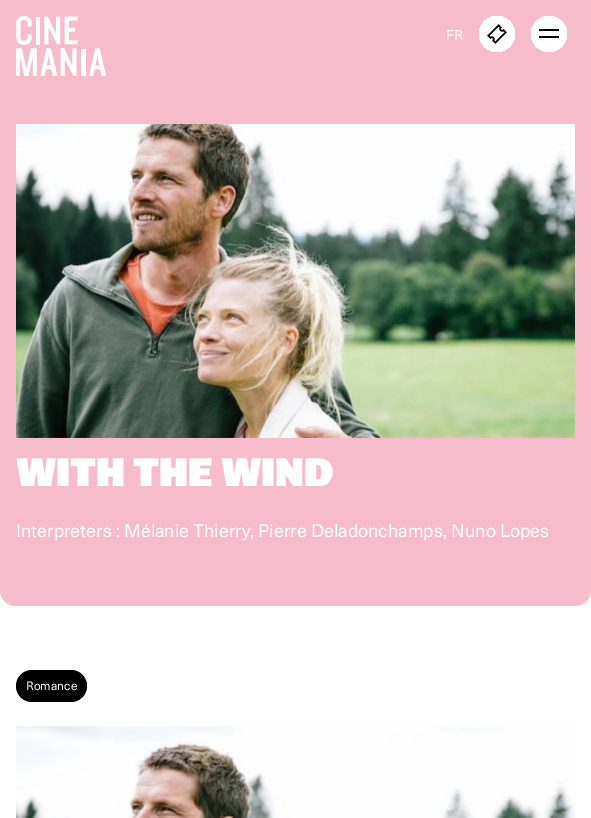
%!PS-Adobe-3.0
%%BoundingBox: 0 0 591 818
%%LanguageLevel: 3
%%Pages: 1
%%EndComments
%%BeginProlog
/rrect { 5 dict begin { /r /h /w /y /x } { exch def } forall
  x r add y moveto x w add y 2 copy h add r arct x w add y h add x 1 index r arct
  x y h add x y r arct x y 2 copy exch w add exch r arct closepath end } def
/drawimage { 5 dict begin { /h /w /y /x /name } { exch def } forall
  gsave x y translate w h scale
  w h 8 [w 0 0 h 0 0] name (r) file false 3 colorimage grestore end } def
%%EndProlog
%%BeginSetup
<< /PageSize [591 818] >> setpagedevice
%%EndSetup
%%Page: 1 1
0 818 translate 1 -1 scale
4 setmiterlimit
1 setgray
0 0 591 818 rectfill
0.965 0.737 0.8 setrgbcolor
newpath 0 0 moveto 591 0 lineto 591 590 lineto 591 599 584 606 575 606 curveto 16 606 lineto 7 606 0 599 0 590 curveto closepath fill
(images/1.raw) 16 16 90 60 drawimage
gsave newpath 497 34 18 0 360 arc closepath clip newpath 587 34 translate 108 378 scale
<< /ShadingType 3 /ColorSpace /DeviceRGB /Coords [0 0 0 0 0 1] /Extend [true true] /Function << /FunctionType 3 /Domain [0 1] /Functions [<< /FunctionType 2 /Domain [0 1] /C0 [0.694 0.694 0.694] /C1 [0.694 0.694 0.694] /N 1 >> << /FunctionType 2 /Domain [0 1] /C0 [0.694 0.694 0.694] /C1 [0.929 0.929 0.929] /N 1 >> << /FunctionType 2 /Domain [0 1] /C0 [0.929 0.929 0.929] /C1 [1 1 1] /N 1 >> << /FunctionType 2 /Domain [0 1] /C0 [1 1 1] /C1 [1 1 1] /N 1 >>] /Bounds [0.34 0.54 0.67] /Encode [0 1 0 1 0 1 0 1] >> >> shfill grestore
(images/2.raw) 487 24 20 20 drawimage
gsave newpath 549 34 18 0 360 arc closepath clip newpath 639 34 translate 108 378 scale
<< /ShadingType 3 /ColorSpace /DeviceRGB /Coords [0 0 0 0 0 1] /Extend [true true] /Function << /FunctionType 3 /Domain [0 1] /Functions [<< /FunctionType 2 /Domain [0 1] /C0 [0.694 0.694 0.694] /C1 [0.694 0.694 0.694] /N 1 >> << /FunctionType 2 /Domain [0 1] /C0 [0.694 0.694 0.694] /C1 [0.929 0.929 0.929] /N 1 >> << /FunctionType 2 /Domain [0 1] /C0 [0.929 0.929 0.929] /C1 [1 1 1] /N 1 >> << /FunctionType 2 /Domain [0 1] /C0 [1 1 1] /C1 [1 1 1] /N 1 >>] /Bounds [0.34 0.54 0.67] /Encode [0 1 0 1 0 1 0 1] >> >> shfill grestore
(images/3.raw) 539 29 20 9 drawimage
(images/4.raw) 16 124 559 314 drawimage
0 setgray
16 670 71 32 16 rrect fill
(images/5.raw) 16 726 559 92 drawimage
/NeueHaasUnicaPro-Regular [14 0 0 -14 0 0] selectfont
1 setgray
446 40 moveto (FR) show
/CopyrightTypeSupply-ExtraBold [39.5 0 0 -39.5 0 0] selectfont
16 486 moveto (WITH THE WIND) show
/NeueHaasUnicaPro-Regular [18 0 0 -18 0 0] selectfont
16 537 moveto (Interpreters : Mélanie Thierry) show
250 537 moveto (, Pierre Deladonchamps) show
443 537 moveto (, Nuno Lopes) show
/NeueHaasUnicaPro-Regular [12 0 0 -12 0 0] selectfont
26 690 moveto (Romance) show
showpage
%%EOF
